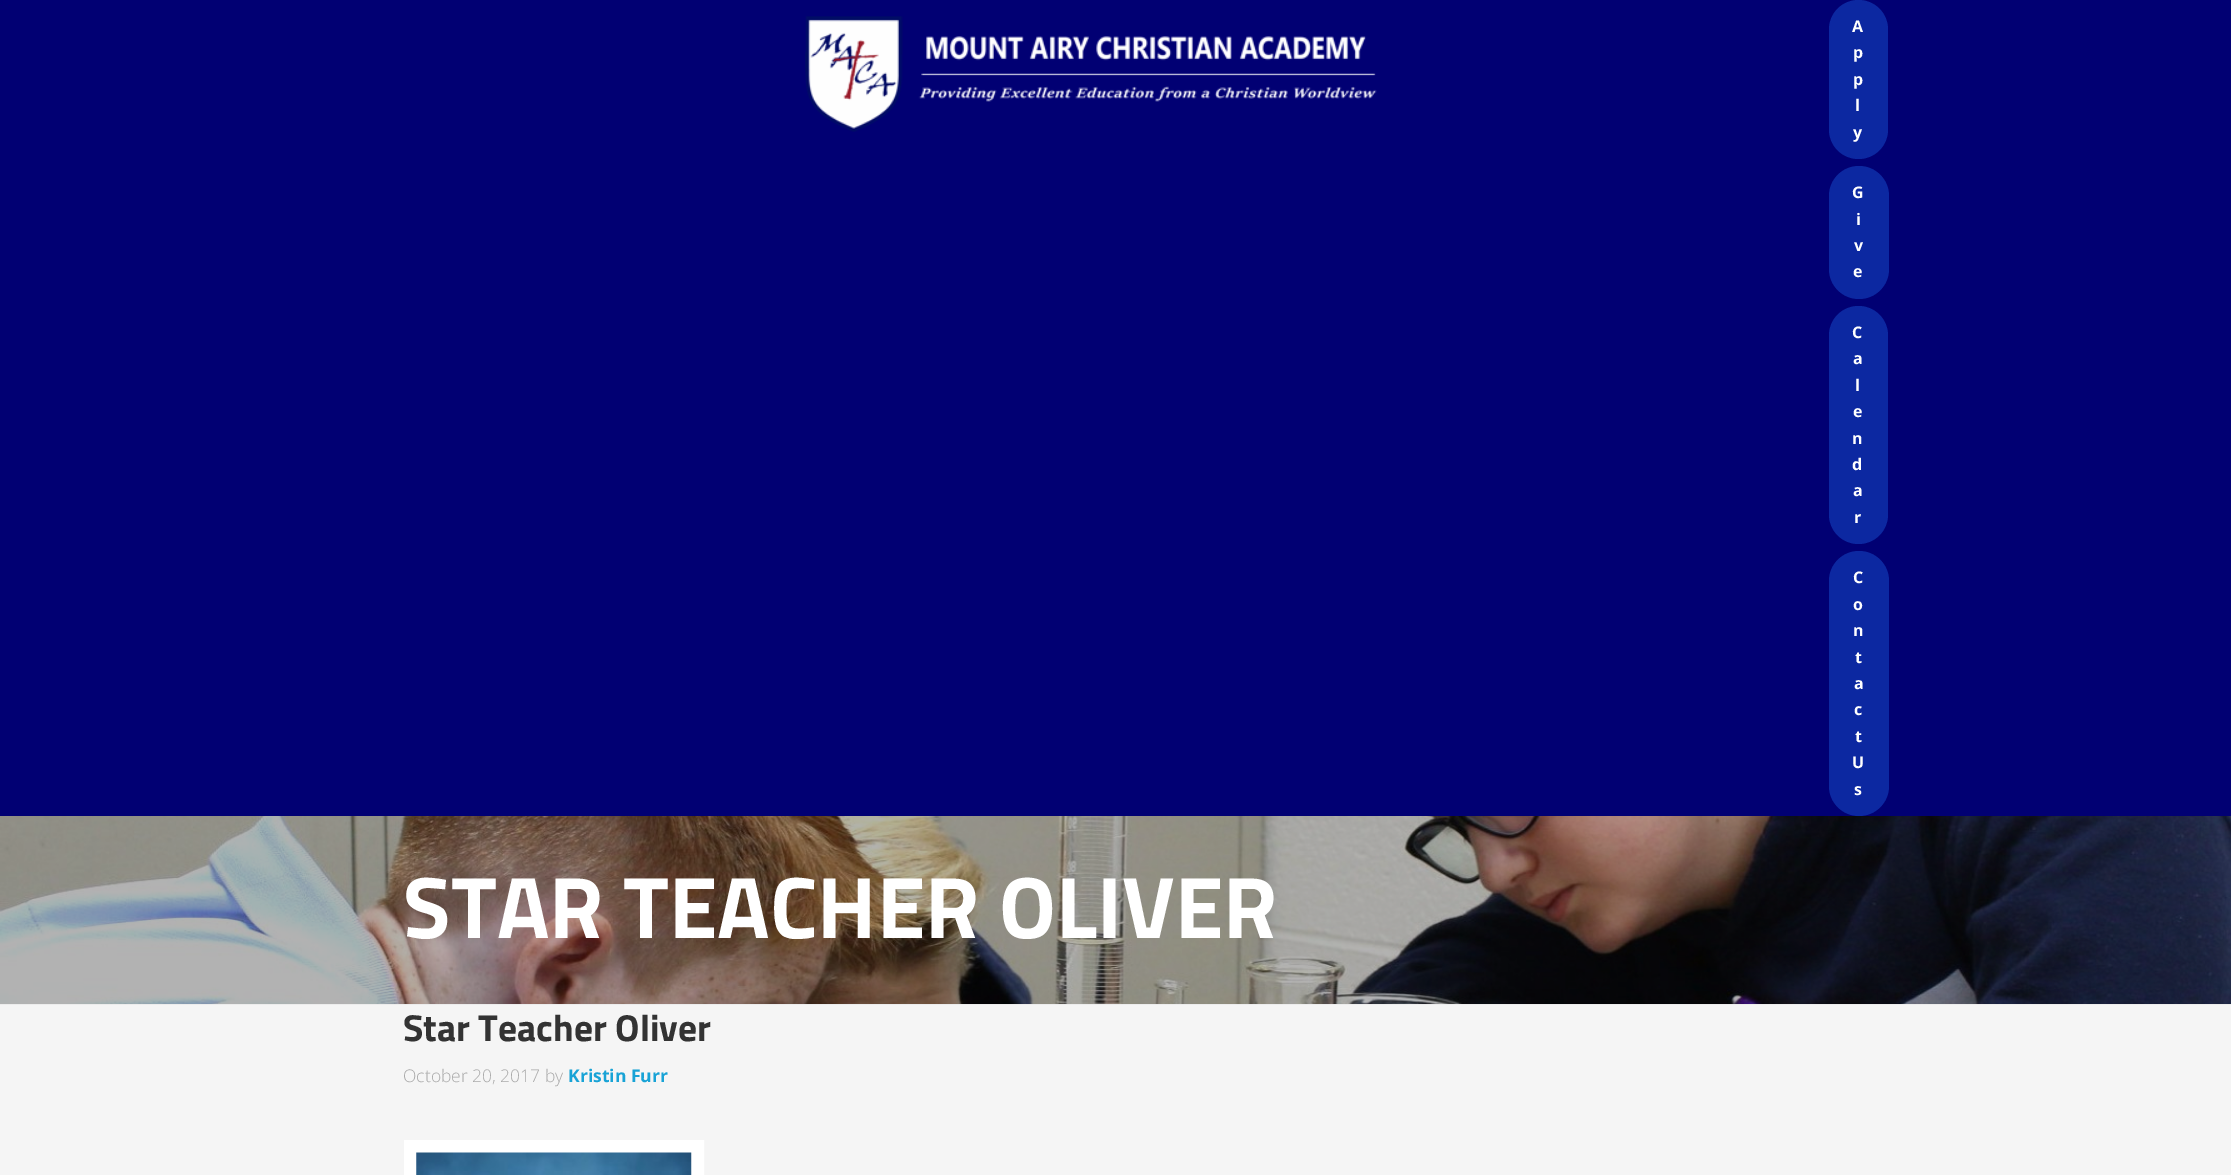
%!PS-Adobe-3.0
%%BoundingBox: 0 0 2231 1175
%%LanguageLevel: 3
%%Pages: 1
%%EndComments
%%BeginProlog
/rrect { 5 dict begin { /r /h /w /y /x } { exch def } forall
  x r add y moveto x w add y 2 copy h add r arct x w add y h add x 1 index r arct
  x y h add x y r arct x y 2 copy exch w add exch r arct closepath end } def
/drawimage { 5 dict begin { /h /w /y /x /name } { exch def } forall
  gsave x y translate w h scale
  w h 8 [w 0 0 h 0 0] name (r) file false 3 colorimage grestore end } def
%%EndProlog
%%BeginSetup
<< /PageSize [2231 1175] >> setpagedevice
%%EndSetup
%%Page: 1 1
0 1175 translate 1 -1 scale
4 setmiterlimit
1 setgray
0 0 2231 1175 rectfill
0.004 0 0.451 setrgbcolor
0 0 2231 816 rectfill
(images/1.raw) 805 16 572 116 drawimage
0.047 0.157 0.631 setrgbcolor
1829 0 59 159 29.5 rrect fill
1829 166 60 133 30 rrect fill
1829 306 59 238 29.5 rrect fill
1829 551 60 265 30 rrect fill
(images/2.raw) 0 816 2231 188 drawimage
0.961 setgray
0 1005 2231 170 rectfill
0.925 setgray
0 1004 2231 1 rectfill
1 setgray
13 setlinewidth
410.5 1146.5 287 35 rectstroke
(images/3.raw) 416 1152 276 23 drawimage
/OpenSans-Bold [16 0 0 -16 0 0] selectfont
1852 32 moveto (A) show
1853 58 moveto (p) show
1853 85 moveto (p) show
1855 111 moveto (l) show
1853 138 moveto (y) show
1852 198 moveto (G) show
1856 225 moveto (i) show
1854 251 moveto (v) show
1853 277 moveto (e) show
1852 338 moveto (C) show
1853 364 moveto (a) show
1855 391 moveto (l) show
1853 417 moveto (e) show
1852 444 moveto (n) show
1852 470 moveto (d) show
1853 496 moveto (a) show
1854 523 moveto (r) show
1853 583 moveto (C) show
1853 610 moveto (o) show
1853 636 moveto (n) show
1855 663 moveto (t) show
1854 689 moveto (a) show
1854 715 moveto (c) show
1855 742 moveto (t) show
1852 768 moveto (U) show
1854 795 moveto (s) show
/TitilliumWeb-Bold [87.5 0 0 -87.5 0 0] selectfont
403 938 moveto (STAR TEACHER OLIVER) show
/TitilliumWeb-Bold [37.5 0 0 -37.5 0 0] selectfont
0.2 setgray
403 1041 moveto (Star Teacher Oliver) show
/OpenSans-Light [17.5 0 0 -17.5 0 0] selectfont
0.667 setgray
403 1082 moveto (October 20, 2017 by) show
/OpenSans-Bold [17.5 0 0 -17.5 0 0] selectfont
0.094 0.639 0.839 setrgbcolor
568 1082 moveto (Kristin Furr) show
showpage
%%EOF
